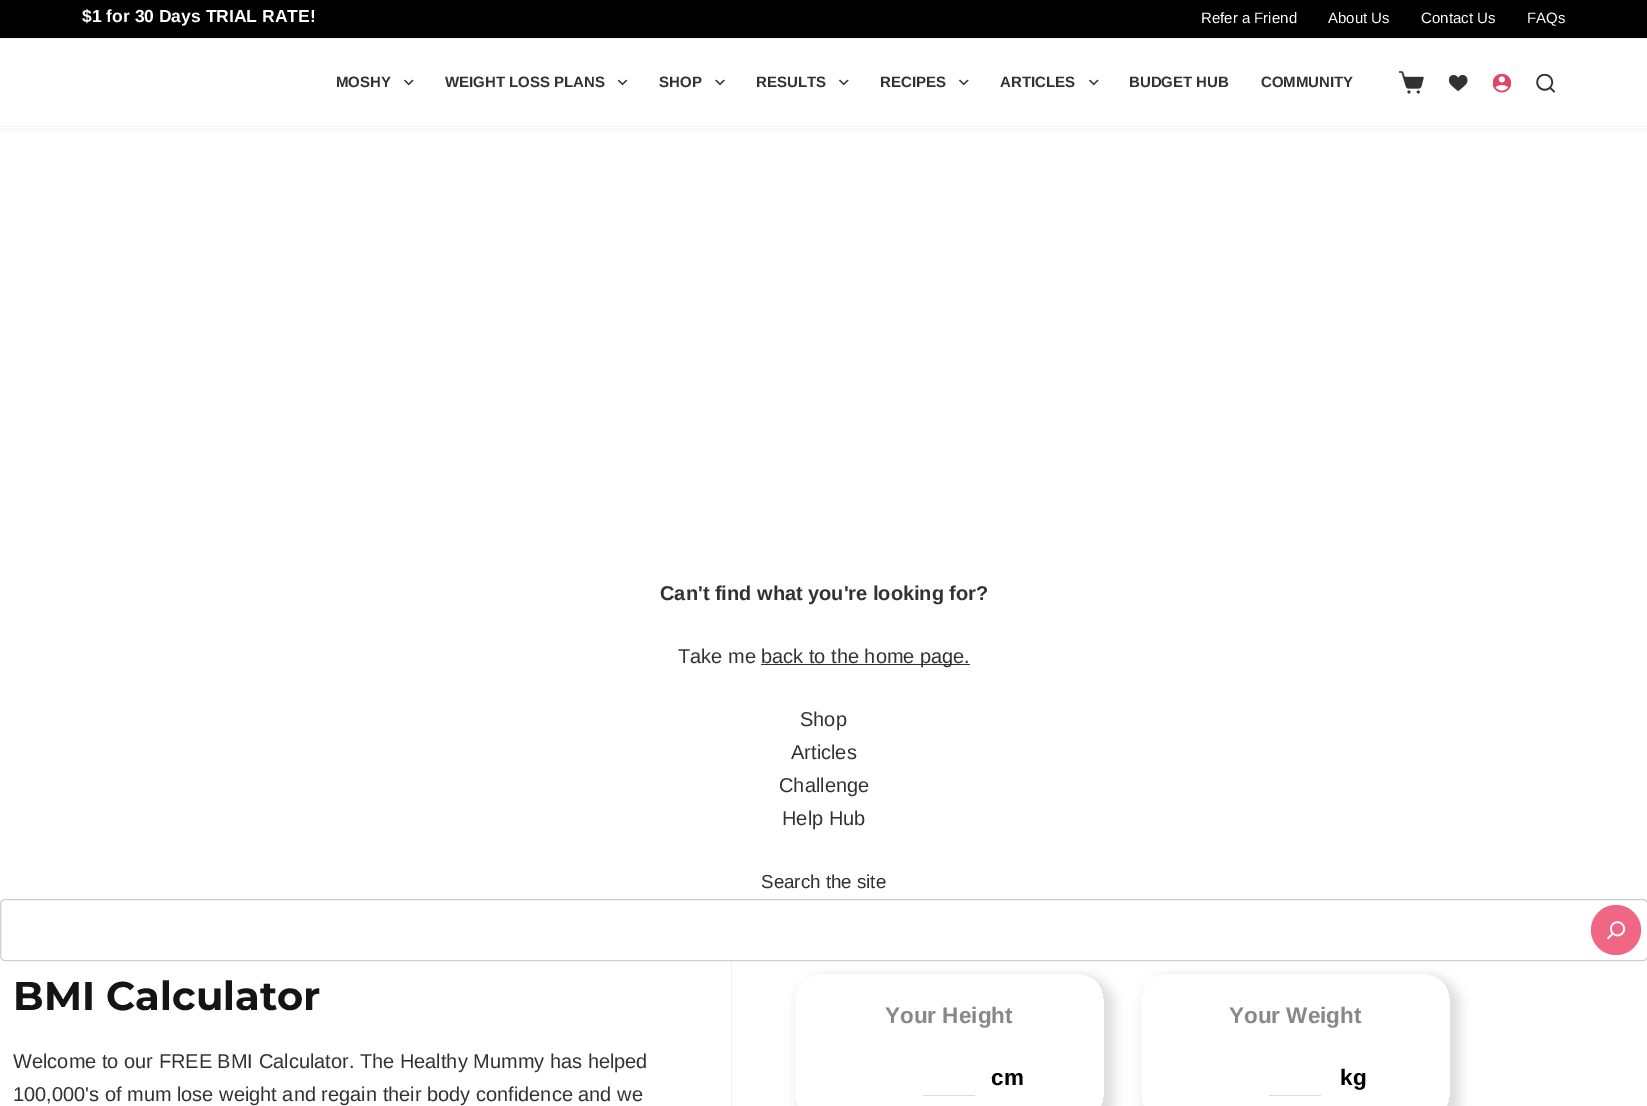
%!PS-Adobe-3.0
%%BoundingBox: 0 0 1647 1106
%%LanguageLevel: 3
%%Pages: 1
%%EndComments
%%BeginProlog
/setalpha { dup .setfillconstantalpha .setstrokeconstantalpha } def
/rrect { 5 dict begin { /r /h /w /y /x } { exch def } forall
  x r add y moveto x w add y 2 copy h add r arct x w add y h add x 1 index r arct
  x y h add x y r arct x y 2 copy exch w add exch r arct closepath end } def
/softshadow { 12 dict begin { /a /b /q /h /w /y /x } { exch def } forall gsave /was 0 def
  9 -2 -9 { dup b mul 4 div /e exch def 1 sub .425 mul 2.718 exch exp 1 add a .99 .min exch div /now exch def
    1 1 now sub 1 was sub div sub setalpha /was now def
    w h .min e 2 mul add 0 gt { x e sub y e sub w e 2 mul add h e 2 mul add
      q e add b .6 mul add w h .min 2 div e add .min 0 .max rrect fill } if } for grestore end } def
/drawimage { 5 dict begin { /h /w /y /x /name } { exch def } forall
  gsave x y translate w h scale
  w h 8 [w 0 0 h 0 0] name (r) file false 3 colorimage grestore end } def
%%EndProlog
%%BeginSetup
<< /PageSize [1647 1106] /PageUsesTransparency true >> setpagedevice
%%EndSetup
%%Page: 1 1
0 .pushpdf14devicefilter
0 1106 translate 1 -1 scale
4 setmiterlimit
1 setgray
0 0 1647 1106 rectfill
0.173 0.243 0.314 setrgbcolor
0 39 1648 90 0 2 0.05 softshadow
0 setgray
0 0 1647 38 rectfill
1 setgray
0 39 1647 89 rectfill
0.949 setgray
0 38 1647 1 rectfill
0 126 1647 1 rectfill
(images/1.raw) 404 79 10 7 drawimage
(images/2.raw) 618 79 10 7 drawimage
(images/3.raw) 715 79 10 7 drawimage
(images/1.raw) 839 79 10 7 drawimage
(images/1.raw) 959 79 10 7 drawimage
(images/1.raw) 1089 79 10 7 drawimage
(images/4.raw) 1399 71 25 23 drawimage
(images/5.raw) 1449 75 19 17 drawimage
(images/6.raw) 1493 74 18 19 drawimage
(images/7.raw) 1536 74 19 19 drawimage
0.196 setgray
761 664 209 1 rectfill
gsave
newpath 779 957 moveto 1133 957 lineto 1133 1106 lineto 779 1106 lineto closepath 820 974 moveto 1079 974 lineto 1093 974 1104 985 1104 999 curveto 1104 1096 lineto 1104 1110 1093 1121 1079 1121 curveto 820 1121 lineto 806 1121 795 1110 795 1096 curveto 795 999 lineto 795 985 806 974 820 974 curveto closepath eoclip newpath
0.867 setgray
798 976 316 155 29 6 1 softshadow
grestore
gsave
newpath 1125 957 moveto 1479 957 lineto 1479 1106 lineto 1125 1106 lineto closepath 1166 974 moveto 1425 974 lineto 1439 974 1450 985 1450 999 curveto 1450 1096 lineto 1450 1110 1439 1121 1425 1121 curveto 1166 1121 lineto 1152 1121 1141 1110 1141 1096 curveto 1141 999 lineto 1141 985 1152 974 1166 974 curveto closepath eoclip newpath
0.867 setgray
1144 976 316 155 29 6 1 softshadow
grestore
0.812 setgray
0.5 899.5 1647 61 4.5 rrect stroke
0.941 0.404 0.522 setrgbcolor
newpath 1616 930 25 0 360 arc closepath fill
(images/8.raw) 1607 921 19 19 drawimage
0.937 setgray
731 961 1 145 rectfill
0.867 setgray
923 1095 52 1 rectfill
1269 1095 52 1 rectfill
/LiberationSans-Bold [17.5 0 0 -17.5 0 0] selectfont
1 setgray
82 22 moveto ($1 for 30 Days TRIAL RATE!) show
/LiberationSans-Regular [15 0 0 -15 0 0] selectfont
1201 23 moveto (Refer a Friend) show
1328 23 moveto (About Us) show
1421 23 moveto (Contact Us) show
1527 23 moveto (FAQs) show
/LiberationSans-Bold [15 0 0 -15 0 0] selectfont
0.196 setgray
336 87 moveto (MOSHY) show
445 87 moveto (WEIGHT LOSS PLANS) show
659 87 moveto (SHOP) show
756 87 moveto (RESULTS) show
880 87 moveto (RECIPES) show
1000 87 moveto (ARTICLES) show
1129 87 moveto (BUDGET HUB) show
1261 87 moveto (COMMUNITY) show
/LiberationSans-Bold [20 0 0 -20 0 0] selectfont
660 600 moveto (Can't find what you're looking for?) show
/LiberationSans-Regular [20 0 0 -20 0 0] selectfont
678 663 moveto (Take me) show
761 663 moveto (back to the home page.) show
800 726 moveto (Shop) show
791 759 moveto (Articles) show
779 792 moveto (Challenge) show
782 825 moveto (Help Hub) show
/LiberationSans-Regular [18.75 0 0 -18.75 0 0] selectfont
761 888 moveto (Search the site) show
/Montserrat-Bold [40 0 0 -40 0 0] selectfont
0.078 setgray
13 1010 moveto (BMI Calculator) show
/LiberationSans-Regular [20 0 0 -20 0 0] selectfont
0.196 setgray
13 1068 moveto (Welcome to our FREE BMI Calculator. The Healthy Mummy has helped) show
13 1101 moveto (100,000's of mum lose weight and regain their body confidence and we) show
/LiberationSans-Bold [22.5 0 0 -22.5 0 0] selectfont
0.533 setgray
885 1023 moveto (Your Height) show
0 setgray
991 1085 moveto (cm) show
0.533 setgray
1229 1023 moveto (Your Weight) show
0 setgray
1340 1085 moveto (kg) show
.poppdf14devicefilter showpage
%%EOF
